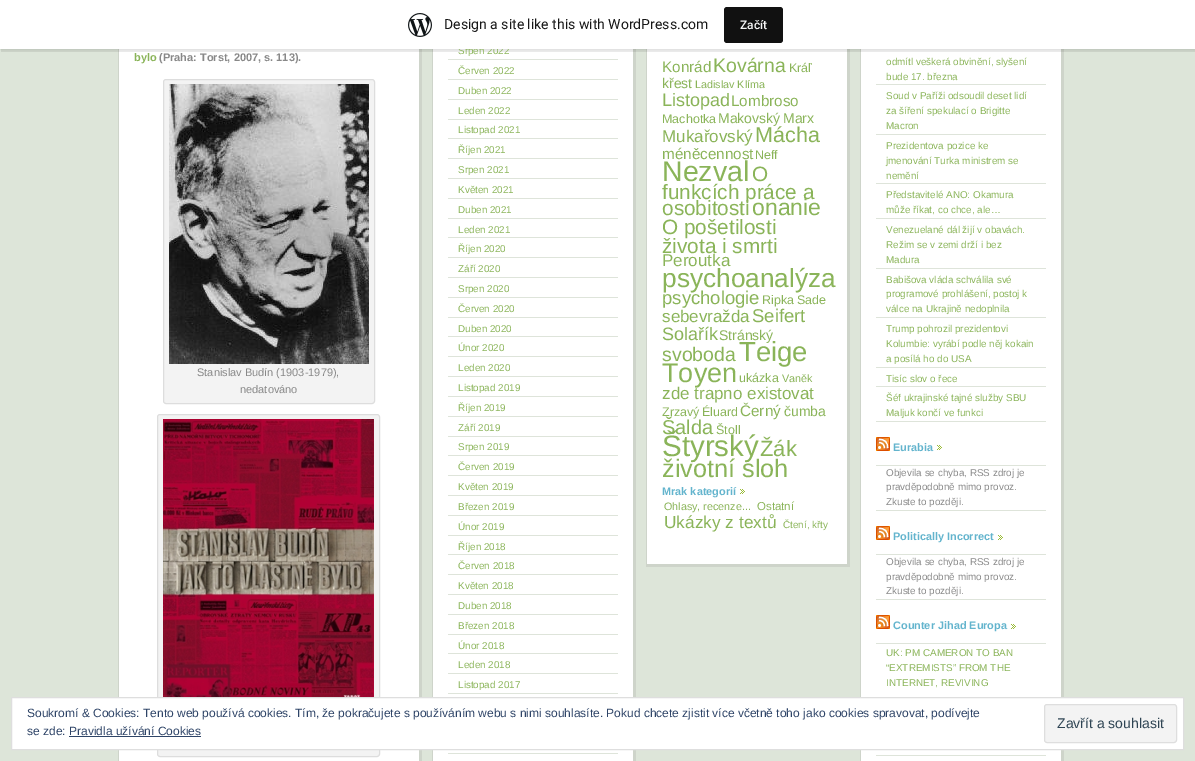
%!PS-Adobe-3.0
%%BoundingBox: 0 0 1195 761
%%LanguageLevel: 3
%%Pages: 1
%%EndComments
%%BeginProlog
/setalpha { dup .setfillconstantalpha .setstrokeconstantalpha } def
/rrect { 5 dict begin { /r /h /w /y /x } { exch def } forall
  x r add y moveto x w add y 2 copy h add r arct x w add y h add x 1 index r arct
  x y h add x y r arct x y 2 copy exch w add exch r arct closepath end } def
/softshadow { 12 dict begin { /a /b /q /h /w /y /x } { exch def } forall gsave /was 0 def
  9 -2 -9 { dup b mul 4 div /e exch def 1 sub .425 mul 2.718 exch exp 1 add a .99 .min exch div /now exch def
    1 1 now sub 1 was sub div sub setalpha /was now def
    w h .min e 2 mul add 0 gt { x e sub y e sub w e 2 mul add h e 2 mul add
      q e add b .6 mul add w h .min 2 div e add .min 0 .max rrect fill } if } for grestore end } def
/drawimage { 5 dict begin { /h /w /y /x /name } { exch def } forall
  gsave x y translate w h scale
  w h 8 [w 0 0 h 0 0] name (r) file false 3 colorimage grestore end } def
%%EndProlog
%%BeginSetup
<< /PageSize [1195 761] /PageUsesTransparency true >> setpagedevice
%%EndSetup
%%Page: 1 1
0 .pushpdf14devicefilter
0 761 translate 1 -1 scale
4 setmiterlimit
0.867 0.898 0.851 setrgbcolor
0 0 1195 761 rectfill
1 setgray
119 49 300 712 rectfill
0.808 0.831 0.792 setrgbcolor
419 49 3 712 rectfill
118 49 1 712 rectfill
1 setgray
433 49 200 712 rectfill
0.808 0.831 0.792 setrgbcolor
633 49 3 712 rectfill
432 49 1 712 rectfill
1 setgray
647 49 200 515 rectfill
0.808 0.831 0.792 setrgbcolor
847 49 3 518 rectfill
646 564 204 3 rectfill
646 49 1 518 rectfill
1 setgray
861 49 200 712 rectfill
0.808 0.831 0.792 setrgbcolor
1061 49 3 712 rectfill
860 49 1 712 rectfill
0 setgray
0 1 1195 49 0 1 0.05 softshadow
0.08 setalpha
newpath 1 49 moveto 1 52 lineto 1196 52 lineto 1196 3 lineto 1195 3 lineto 1195 49 lineto closepath fill
1 setalpha
0.953 setgray
163.5 79.5 211 324 2.5 rrect gsave fill grestore
0.867 setgray
stroke
(images/2.raw) 169 84 200 280 drawimage
0.953 setgray
157.5 414.5 222 342 2.5 rrect gsave fill grestore
0.867 setgray
stroke
(images/3.raw) 163 419 211 278 drawimage
0.871 0.894 0.855 setrgbcolor
448 59 170 1 rectfill
448 79 170 1 rectfill
448 99 170 1 rectfill
448 119 170 1 rectfill
448 138 170 1 rectfill
448 158 170 1 rectfill
448 178 170 1 rectfill
448 198 170 1 rectfill
448 218 170 1 rectfill
448 237 170 1 rectfill
448 257 170 1 rectfill
448 277 170 1 rectfill
448 297 170 1 rectfill
448 317 170 1 rectfill
448 336 170 1 rectfill
448 356 170 1 rectfill
448 376 170 1 rectfill
448 396 170 1 rectfill
448 416 170 1 rectfill
448 436 170 1 rectfill
448 455 170 1 rectfill
448 475 170 1 rectfill
448 495 170 1 rectfill
448 515 170 1 rectfill
448 535 170 1 rectfill
448 554 170 1 rectfill
448 574 170 1 rectfill
448 594 170 1 rectfill
448 614 170 1 rectfill
448 634 170 1 rectfill
448 653 170 1 rectfill
448 673 170 1 rectfill
448 693 170 1 rectfill
448 753 170 1 rectfill
(images/4.raw) 740 489 5 5 drawimage
876 84 170 1 rectfill
876 134 170 1 rectfill
876 183 170 1 rectfill
876 218 170 1 rectfill
876 268 170 1 rectfill
876 317 170 1 rectfill
876 367 170 1 rectfill
876 386 170 1 rectfill
876 421 170 1 rectfill
1 0.647 0 setrgbcolor
876 437 14 14 rectfill
(images/5.raw) 876 437 14 14 drawimage
(images/4.raw) 937 445 5 5 drawimage
0.871 0.894 0.855 setrgbcolor
876 465 170 1 rectfill
876 510 170 1 rectfill
1 0.647 0 setrgbcolor
876 526 14 14 rectfill
(images/5.raw) 876 526 14 14 drawimage
(images/4.raw) 998 535 5 5 drawimage
0.871 0.894 0.855 setrgbcolor
876 554 170 1 rectfill
876 599 170 1 rectfill
1 0.647 0 setrgbcolor
876 615 14 14 rectfill
(images/5.raw) 876 615 14 14 drawimage
(images/4.raw) 1011 624 5 5 drawimage
0.871 0.894 0.855 setrgbcolor
876 643 170 1 rectfill
876 755 170 1 rectfill
1 setgray
newpath 11.5 697.5 moveto 1183.5 697.5 lineto 1183.5 749.5 lineto 11.5 749.5 lineto closepath gsave fill grestore
0.871 setgray
stroke
0.953 setgray
1044.5 704.5 132 38 2.5 rrect gsave fill grestore
0.871 setgray
stroke
0.18 0.267 0.404 setrgbcolor
69 736 132 1 rectfill
/LiberationSans-Bold [11 0 0 -11 0 0] selectfont
0.541 0.706 0.349 setrgbcolor
134 61 moveto (bylo) show
0.533 setgray
159 61 moveto (\(Praha: Torst, 2007, s. 113\).) show
/LiberationSans-Regular [11 0 0 -11 0 0] selectfont
197 376 moveto (Stanislav Budín \(1903-1979\),) show
240 393 moveto (nedatováno) show
/LiberationSans-Regular [9.9 0 0 -9.9 0 0] selectfont
0.541 0.706 0.349 setrgbcolor
458 54 moveto (Srpen 2022) show
1 setgray
0 0 1195 49 rectfill
(images/1.raw) 408 13 24 24 drawimage
/Roboto-Regular [14 0 0 -14 0 0] selectfont
0.09 setgray
444 29 moveto (Design a site like this with WordPress.com) show
0.067 setgray
724 7 59 36 3 rrect fill
/Roboto-Medium [12 0 0 -12 0 0] selectfont
0.965 0.969 0.969 setrgbcolor
740 29 moveto (Začít) show
/LiberationSans-Regular [9.9 0 0 -9.9 0 0] selectfont
0.541 0.706 0.349 setrgbcolor
458 74 moveto (Červen 2022) show
458 94 moveto (Duben 2022) show
458 114 moveto (Leden 2022) show
458 133 moveto (Listopad 2021) show
458 153 moveto (Říjen 2021) show
458 173 moveto (Srpen 2021) show
458 193 moveto (Květen 2021) show
458 213 moveto (Duben 2021) show
458 233 moveto (Leden 2021) show
458 252 moveto (Říjen 2020) show
458 272 moveto (Září 2020) show
458 292 moveto (Srpen 2020) show
458 312 moveto (Červen 2020) show
458 332 moveto (Duben 2020) show
458 351 moveto (Únor 2020) show
458 371 moveto (Leden 2020) show
458 391 moveto (Listopad 2019) show
458 411 moveto (Říjen 2019) show
458 431 moveto (Září 2019) show
458 450 moveto (Srpen 2019) show
458 470 moveto (Červen 2019) show
458 490 moveto (Květen 2019) show
458 510 moveto (Březen 2019) show
458 530 moveto (Únor 2019) show
458 550 moveto (Říjen 2018) show
458 569 moveto (Červen 2018) show
458 589 moveto (Květen 2018) show
458 609 moveto (Duben 2018) show
458 629 moveto (Březen 2018) show
458 649 moveto (Únor 2018) show
458 668 moveto (Leden 2018) show
458 688 moveto (Listopad 2017) show
/LiberationSans-Regular [15.25 0 0 -15.25 0 0] selectfont
662 72 moveto (Konrád) show
/LiberationSans-Regular [19.5 0 0 -19.5 0 0] selectfont
713 72 moveto (Kovárna) show
/LiberationSans-Regular [12.5 0 0 -12.5 0 0] selectfont
789 72 moveto (Kráľ) show
/LiberationSans-Regular [14 0 0 -14 0 0] selectfont
662 88 moveto (křest) show
/LiberationSans-Regular [10.75 0 0 -10.75 0 0] selectfont
695 88 moveto (Ladislav Klíma) show
/LiberationSans-Regular [18 0 0 -18 0 0] selectfont
662 106 moveto (Listopad) show
/LiberationSans-Regular [15.25 0 0 -15.25 0 0] selectfont
731 106 moveto (Lombroso) show
/LiberationSans-Regular [12.5 0 0 -12.5 0 0] selectfont
662 123 moveto (Machotka) show
/LiberationSans-Regular [14 0 0 -14 0 0] selectfont
718 123 moveto (Makovský) show
783 123 moveto (Marx) show
/LiberationSans-Regular [17 0 0 -17 0 0] selectfont
662 142 moveto (Mukařovský) show
/LiberationSans-Regular [21.5 0 0 -21.5 0 0] selectfont
755 142 moveto (Mácha) show
/LiberationSans-Regular [15.25 0 0 -15.25 0 0] selectfont
662 159 moveto (méněcennost) show
/LiberationSans-Regular [12.5 0 0 -12.5 0 0] selectfont
755 159 moveto (Neff) show
/LiberationSans-Regular [28.5 0 0 -28.5 0 0] selectfont
662 181 moveto (Nezval) show
/LiberationSans-Regular [20.75 0 0 -20.75 0 0] selectfont
752 181 moveto (O) show
662 199 moveto (funkcích práce a) show
662 215 moveto (osobitosti) show
/LiberationSans-Regular [23 0 0 -23 0 0] selectfont
752 215 moveto (onanie) show
/LiberationSans-Regular [20.75 0 0 -20.75 0 0] selectfont
662 234 moveto (O pošetilosti) show
662 253 moveto (života i smrti) show
/LiberationSans-Regular [17 0 0 -17 0 0] selectfont
662 266 moveto (Peroutka) show
/LiberationSans-Regular [26.25 0 0 -26.25 0 0] selectfont
662 287 moveto (psychoanalýza) show
/LiberationSans-Regular [18.5 0 0 -18.5 0 0] selectfont
662 304 moveto (psychologie) show
/LiberationSans-Regular [12.5 0 0 -12.5 0 0] selectfont
762 304 moveto (Ripka) show
797 304 moveto (Sade) show
/LiberationSans-Regular [17 0 0 -17 0 0] selectfont
662 322 moveto (sebevražda) show
/LiberationSans-Regular [18.5 0 0 -18.5 0 0] selectfont
752 322 moveto (Seifert) show
/LiberationSans-Regular [18 0 0 -18 0 0] selectfont
662 340 moveto (Solařík) show
/LiberationSans-Regular [14 0 0 -14 0 0] selectfont
719 340 moveto (Stránský) show
/LiberationSans-Regular [19.5 0 0 -19.5 0 0] selectfont
662 361 moveto (svoboda) show
/LiberationSans-Regular [27.5 0 0 -27.5 0 0] selectfont
739 361 moveto (Teige) show
/LiberationSans-Regular [27 0 0 -27 0 0] selectfont
662 382 moveto (Toyen) show
/LiberationSans-Regular [12.5 0 0 -12.5 0 0] selectfont
739 382 moveto (ukázka) show
/LiberationSans-Regular [10.75 0 0 -10.75 0 0] selectfont
782 382 moveto (Vaněk) show
/LiberationSans-Regular [17 0 0 -17 0 0] selectfont
662 399 moveto (zde trapno existovat) show
/LiberationSans-Regular [12.5 0 0 -12.5 0 0] selectfont
662 416 moveto (Zrzavý) show
702 416 moveto (Éluard) show
/LiberationSans-Regular [15.25 0 0 -15.25 0 0] selectfont
740 416 moveto (Černý) show
/LiberationSans-Regular [14 0 0 -14 0 0] selectfont
784 416 moveto (čumba) show
/LiberationSans-Regular [20 0 0 -20 0 0] selectfont
662 434 moveto (Šalda) show
/LiberationSans-Regular [12.5 0 0 -12.5 0 0] selectfont
716 434 moveto (Štoll) show
/LiberationSans-Regular [29.5 0 0 -29.5 0 0] selectfont
662 456 moveto (Štyrský) show
/LiberationSans-Regular [22 0 0 -22 0 0] selectfont
760 456 moveto (Žák) show
/LiberationSans-Regular [25.25 0 0 -25.25 0 0] selectfont
662 477 moveto (životní sloh) show
/LiberationSans-Bold [10.9 0 0 -10.9 0 0] selectfont
0.388 0.706 0.804 setrgbcolor
662 495 moveto (Mrak kategorií) show
/LiberationSans-Regular [10.75 0 0 -10.75 0 0] selectfont
0.541 0.706 0.349 setrgbcolor
664 510 moveto (Ohlasy, recenze...) show
/LiberationSans-Regular [11.5 0 0 -11.5 0 0] selectfont
757 510 moveto (Ostatní) show
/LiberationSans-Regular [17.25 0 0 -17.25 0 0] selectfont
664 528 moveto (Ukázky z textů) show
/LiberationSans-Regular [9.9 0 0 -9.9 0 0] selectfont
783 528 moveto (Čtení, křty) show
886 65 moveto (odmítl veškerá obvinění, slyšení) show
886 80 moveto (bude 17. března) show
886 99 moveto (Soud v Paříži odsoudil deset lidí) show
886 114 moveto (za šíření spekulací o Brigitte) show
886 129 moveto (Macron) show
886 149 moveto (Prezidentova pozice ke) show
886 164 moveto (jmenování Turka ministrem se) show
886 179 moveto (nemění) show
886 198 moveto (Představitelé ANO: Okamura) show
886 213 moveto (může říkat, co chce, ale…) show
886 233 moveto (Venezuelané dál žijí v obavách.) show
886 248 moveto (Režim se v zemi drží i bez) show
886 263 moveto (Madura) show
886 283 moveto (Babišova vláda schválila své) show
886 297 moveto (programové prohlášení, postoj k) show
886 312 moveto (válce na Ukrajině nedoplnila) show
886 332 moveto (Trump pohrozil prezidentovi) show
886 347 moveto (Kolumbie: vyrábí podle něj kokain) show
886 362 moveto (a posílá ho do USA) show
886 382 moveto (Tisíc slov o řece) show
886 401 moveto (Šéf ukrajinské tajné služby SBU) show
886 416 moveto (Maljuk končí ve funkci) show
/LiberationSans-Bold [10.9 0 0 -10.9 0 0] selectfont
0.388 0.706 0.804 setrgbcolor
893 451 moveto (Eurabia) show
/LiberationSans-Regular [9.9 0 0 -9.9 0 0] selectfont
0.533 setgray
886 476 moveto (Objevila se chyba, RSS zdroj je) show
886 490 moveto (pravděpodobně mimo provoz.) show
886 505 moveto (Zkuste to později.) show
/LiberationSans-Bold [10.9 0 0 -10.9 0 0] selectfont
0.388 0.706 0.804 setrgbcolor
893 540 moveto (Politically Incorrect) show
/LiberationSans-Regular [9.9 0 0 -9.9 0 0] selectfont
0.533 setgray
886 565 moveto (Objevila se chyba, RSS zdroj je) show
886 580 moveto (pravděpodobně mimo provoz.) show
886 594 moveto (Zkuste to později.) show
/LiberationSans-Bold [10.9 0 0 -10.9 0 0] selectfont
0.388 0.706 0.804 setrgbcolor
893 629 moveto (Counter Jihad Europa) show
/LiberationSans-Regular [9.9 0 0 -9.9 0 0] selectfont
0.541 0.706 0.349 setrgbcolor
886 656 moveto (UK: PM CAMERON TO BAN) show
886 671 moveto (“EXTREMISTS” FROM THE) show
886 686 moveto (INTERNET, REVIVING) show
/LiberationSans-Regular [12 0 0 -12 0 0] selectfont
0.18 0.267 0.404 setrgbcolor
27 717 moveto (Soukromí & Cookies: Tento web používá cookies. Tím, že pokračujete s používáním webu s nimi souhlasíte. Pokud chcete zjistit více včetně toho jako cookies spravovat, podívejte) show
/LiberationSans-Regular [14 0 0 -14 0 0] selectfont
0.18 0.267 0.325 setrgbcolor
1057 728 moveto (Zavřít a souhlasit) show
/LiberationSans-Regular [12 0 0 -12 0 0] selectfont
0.18 0.267 0.404 setrgbcolor
27 735 moveto (se zde: Pravidla užívání Cookies) show
.poppdf14devicefilter showpage
%%EOF
